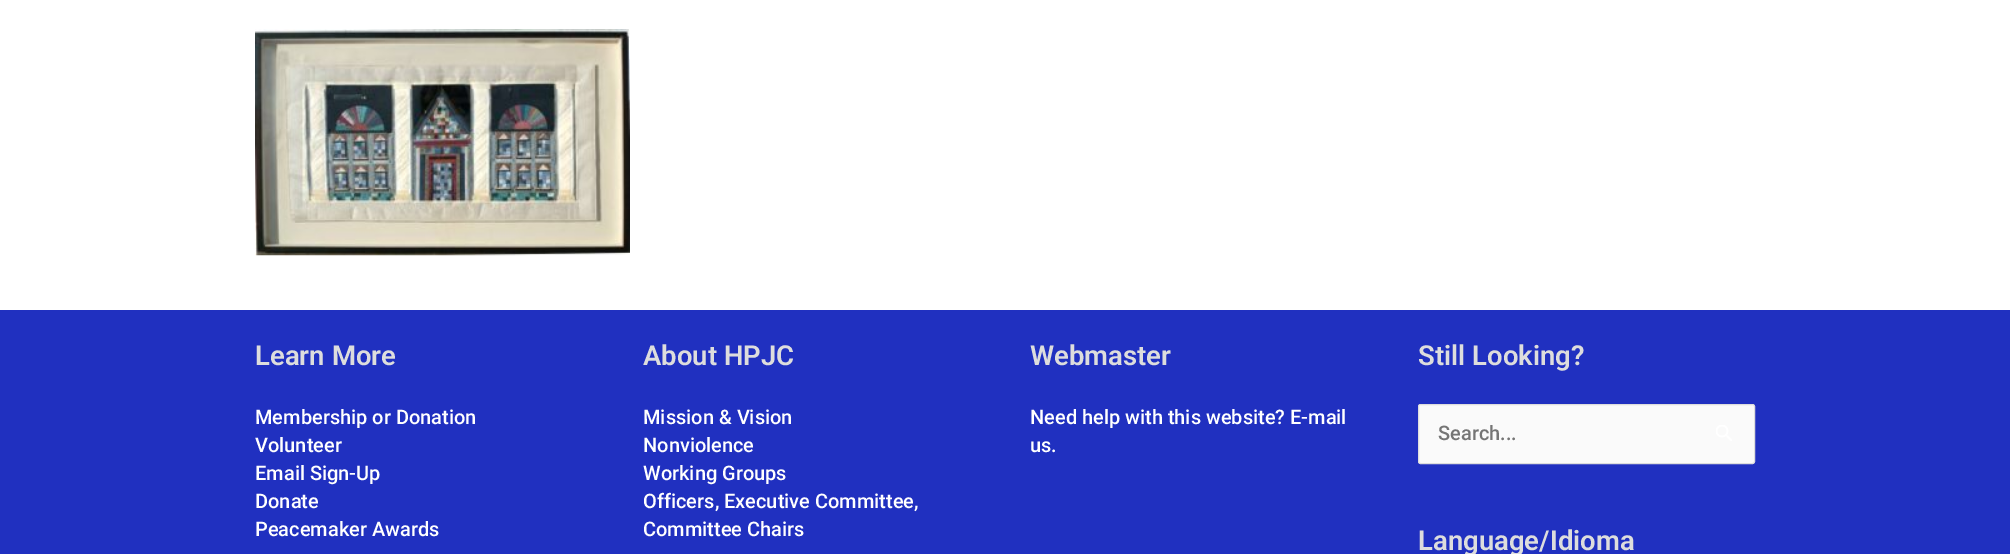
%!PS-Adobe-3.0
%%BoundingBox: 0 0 2010 554
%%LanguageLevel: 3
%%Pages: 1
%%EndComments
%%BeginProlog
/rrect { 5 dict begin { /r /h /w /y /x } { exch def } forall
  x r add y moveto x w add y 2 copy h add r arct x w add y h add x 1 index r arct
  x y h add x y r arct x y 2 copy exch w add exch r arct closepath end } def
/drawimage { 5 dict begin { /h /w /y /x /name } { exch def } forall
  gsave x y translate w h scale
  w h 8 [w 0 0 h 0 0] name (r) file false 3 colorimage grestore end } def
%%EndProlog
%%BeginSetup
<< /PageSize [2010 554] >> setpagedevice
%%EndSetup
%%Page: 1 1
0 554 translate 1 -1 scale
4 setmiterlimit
1 setgray
0 0 2010 554 rectfill
(images/1.raw) 255 29 375 227 drawimage
0.125 0.188 0.753 setrgbcolor
0 310 2010 244 rectfill
0.98 setgray
1418.5 404.5 336 59 2 rrect gsave fill grestore
0.867 setgray
stroke
(images/2.raw) 1716 425 16 16 drawimage
/Roboto-SemiBold [27.5 0 0 -27.5 0 0] selectfont
255 365 moveto (Learn More) show
/Roboto-Medium [20 0 0 -20 0 0] selectfont
1 setgray
255 424 moveto (Membership or Donation) show
255 452 moveto (Volunteer) show
255 480 moveto (Email Sign-Up) show
255 508 moveto (Donate) show
255 536 moveto (Peacemaker Awards) show
/Roboto-SemiBold [27.5 0 0 -27.5 0 0] selectfont
0.867 setgray
643 365 moveto (About HPJC) show
/Roboto-Medium [20 0 0 -20 0 0] selectfont
1 setgray
643 424 moveto (Mission & Vision) show
643 452 moveto (Nonviolence) show
643 480 moveto (Working Groups) show
643 508 moveto (Officers, Executive Committee,) show
643 536 moveto (Committee Chairs) show
/Roboto-SemiBold [27.5 0 0 -27.5 0 0] selectfont
0.867 setgray
1030 365 moveto (Webmaster) show
/Roboto-Medium [20 0 0 -20 0 0] selectfont
1 setgray
1030 424 moveto (Need help with this website? E-mail) show
1030 452 moveto (us.) show
/Roboto-SemiBold [27.5 0 0 -27.5 0 0] selectfont
0.867 setgray
1418 365 moveto (Still Looking?) show
/Roboto-Medium [20 0 0 -20 0 0] selectfont
0.459 setgray
1438 440 moveto (Search...) show
/Roboto-SemiBold [27.5 0 0 -27.5 0 0] selectfont
0.867 setgray
1418 550 moveto (Language/Idioma) show
showpage
%%EOF
